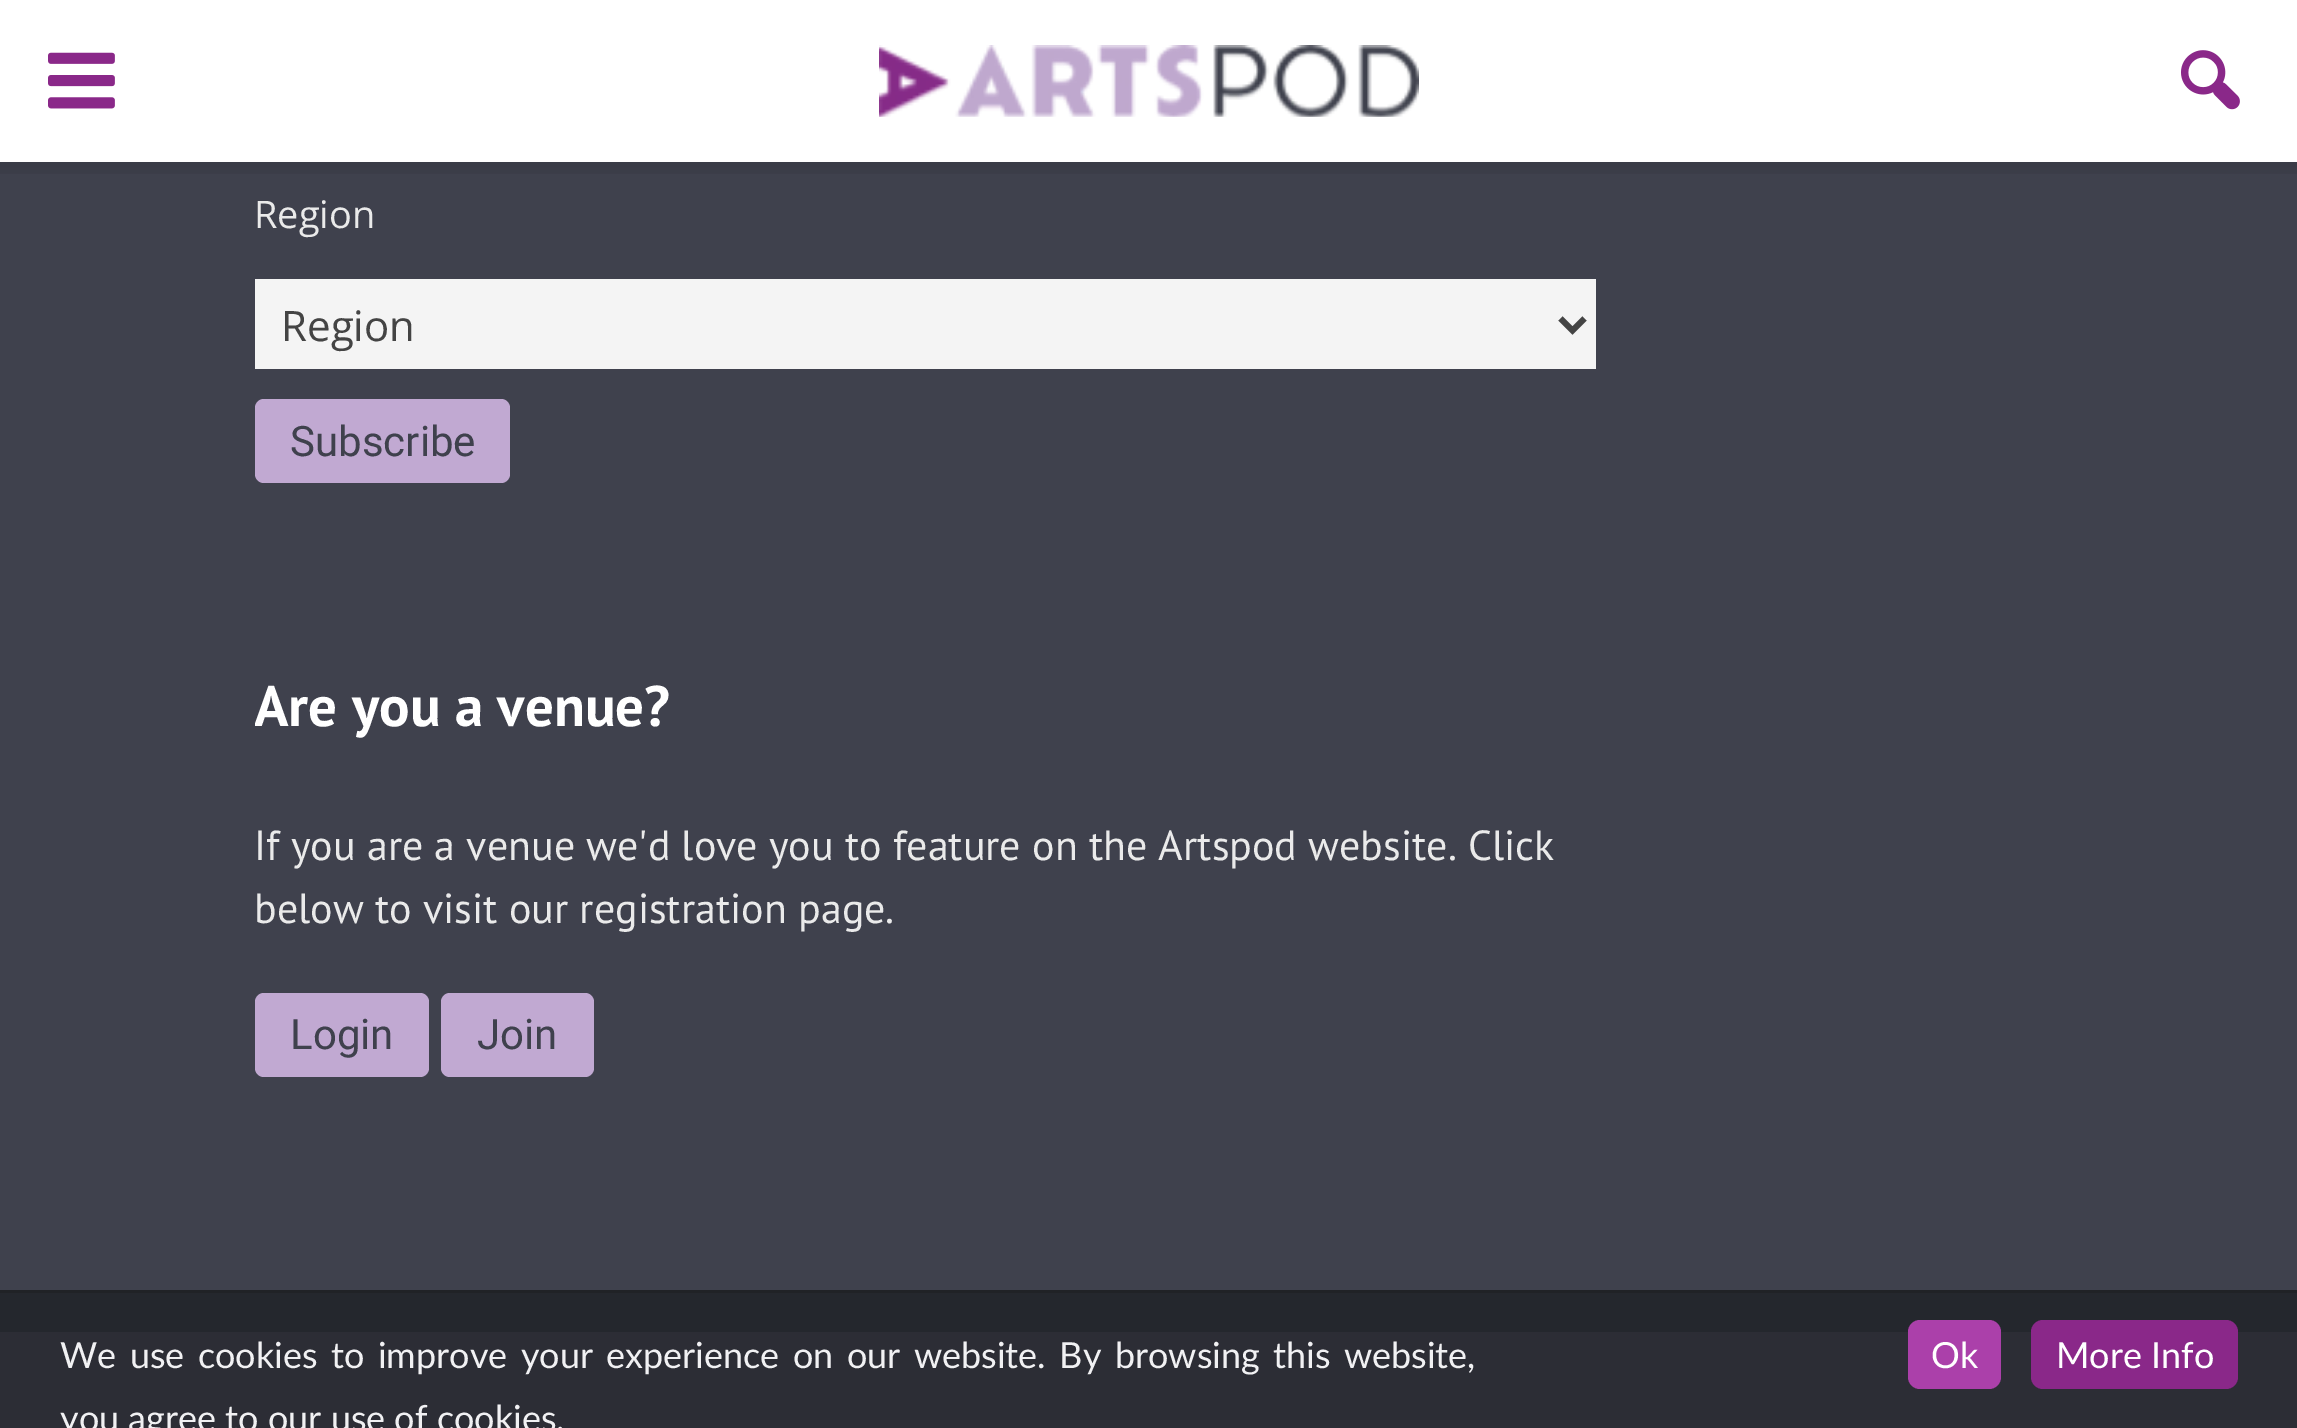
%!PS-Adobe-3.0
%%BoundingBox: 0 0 2297 1428
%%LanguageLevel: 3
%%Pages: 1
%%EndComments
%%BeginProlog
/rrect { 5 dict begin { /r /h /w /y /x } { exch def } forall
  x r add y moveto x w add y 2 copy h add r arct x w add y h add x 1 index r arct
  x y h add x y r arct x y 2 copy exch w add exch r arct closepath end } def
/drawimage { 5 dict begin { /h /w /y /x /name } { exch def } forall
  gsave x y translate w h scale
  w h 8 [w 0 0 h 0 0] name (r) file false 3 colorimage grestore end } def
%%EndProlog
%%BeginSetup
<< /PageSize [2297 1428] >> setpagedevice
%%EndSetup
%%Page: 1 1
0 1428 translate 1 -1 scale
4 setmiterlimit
0.173 0.176 0.208 setrgbcolor
0 0 2297 1428 rectfill
1 setgray
0 0 2297 162 rectfill
(images/1.raw) 48 52 67 57 drawimage
(images/2.raw) 879 45 540 72 drawimage
(images/3.raw) 2181 50 59 60 drawimage
0.247 0.255 0.302 setrgbcolor
0 162 2297 1128 rectfill
(images/4.raw) 0 162 2297 12 drawimage
0.141 0.153 0.176 setrgbcolor
0 1293 2297 39 rectfill
0.957 setgray
255 279 1341 90 rectfill
0.267 setgray
6 setlinewidth
newpath 1560.5 318.5 moveto 1572.5 330.5 lineto 1584.5 318.5 lineto stroke
0.757 0.663 0.824 setrgbcolor
255 399 255 84 9 rrect fill
255 993 174 84 9 rrect fill
441 993 153 84 9 rrect fill
0.125 0.133 0.149 setrgbcolor
0 1290 2297 3 rectfill
0.671 0.251 0.667 setrgbcolor
1908 1320 93 69 12 rrect fill
0.541 0.157 0.537 setrgbcolor
2031 1320 207 69 12 rrect fill
/OpenSans-Regular [38 0 0 -38 0 0] selectfont
0.918 setgray
254 228 moveto (Region) show
/OpenSans-Regular [42 0 0 -42 0 0] selectfont
0.267 setgray
281 341 moveto (Region) show
/Roboto-Regular [42 0 0 -42 0 0] selectfont
0.247 0.255 0.302 setrgbcolor
290 456 moveto (Subscribe) show
gsave
255 669 1341 462 rectclip
/PTSans-Bold [57 0 0 -57 0 0] selectfont
1 setgray
254 726 moveto (Are you a venue?) show
grestore
/PTSans-Regular [42 0 0 -42 0 0] selectfont
0.918 setgray
254 860 moveto (If you are a venue we'd love you to feature on the Artspod website. Click) show
254 923 moveto (below to visit our registration page.) show
/Roboto-Regular [42 0 0 -42 0 0] selectfont
0.247 0.255 0.302 setrgbcolor
290 1049 moveto (Login) show
477 1049 moveto (Join) show
/Lato-Regular [36 0 0 -36 0 0] selectfont
0.945 0.945 0.953 setrgbcolor
60 1368 moveto 4.25 0 32 (We use cookies to improve your experience on our website. By browsing this website,) widthshow
60 1431 moveto (you agree to our use of cookies.) show
1 setgray
1931 1368 moveto (Ok) show
2056 1368 moveto (More Info) show
showpage
%%EOF
